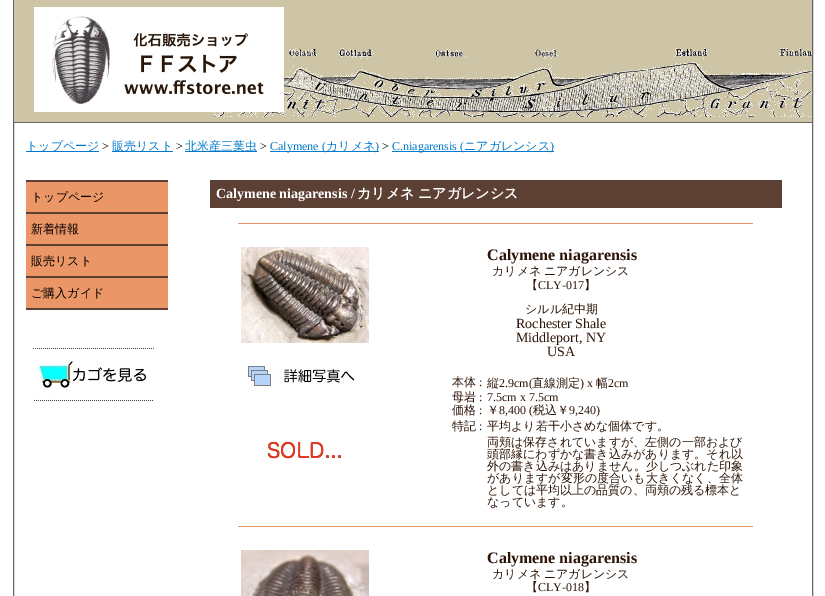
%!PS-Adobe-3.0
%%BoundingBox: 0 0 825 596
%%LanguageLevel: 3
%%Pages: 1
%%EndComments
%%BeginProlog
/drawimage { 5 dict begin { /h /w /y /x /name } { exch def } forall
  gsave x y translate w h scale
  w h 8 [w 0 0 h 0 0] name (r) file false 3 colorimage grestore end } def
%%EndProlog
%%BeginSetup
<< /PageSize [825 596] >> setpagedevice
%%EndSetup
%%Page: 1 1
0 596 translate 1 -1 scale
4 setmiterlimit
1 setgray
0 0 825 596 rectfill
0.4 setgray
13.5 -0.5 799 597 rectstroke
0.808 0.773 0.651 setrgbcolor
14 0 798 122 rectfill
(images/1.raw) 214 48 598 69 drawimage
0.4 setgray
14 122 798 1 rectfill
(images/2.raw) 34 7 250 105 drawimage
0.004 0.478 0.804 setrgbcolor
26 151 73 1 rectfill
112 151 61 1 rectfill
185 151 72 1 rectfill
270 151 109 1 rectfill
392 151 162 1 rectfill
0.361 0.251 0.2 setrgbcolor
26 180 142 2 rectfill
0.922 0.588 0.4 setrgbcolor
26 182 142 30 rectfill
0.361 0.251 0.2 setrgbcolor
26 212 142 2 rectfill
0.922 0.588 0.4 setrgbcolor
26 214 142 30 rectfill
0.361 0.251 0.2 setrgbcolor
26 244 142 2 rectfill
0.922 0.588 0.4 setrgbcolor
26 246 142 30 rectfill
0.361 0.251 0.2 setrgbcolor
26 276 142 2 rectfill
0.922 0.588 0.4 setrgbcolor
26 278 142 30 rectfill
0.361 0.251 0.2 setrgbcolor
26 308 142 2 rectfill
(images/3.raw) 32 348 122 54 drawimage
210 180 572 28 rectfill
0.922 0.588 0.4 setrgbcolor
238 223 515 1 rectfill
(images/4.raw) 241 247 128 96 drawimage
(images/5.raw) 248 366 107 20 drawimage
(images/6.raw) 267 441 74 18 drawimage
238 526 515 1 rectfill
(images/7.raw) 241 550 128 46 drawimage
/WenQuanYiZenHei-Medium [12 0 0 -12 0 0] selectfont
0.004 0.478 0.804 setrgbcolor
26 150 moveto (トップページ) show
/LiberationSerif-Regular [12 0 0 -12 0 0] selectfont
0 setgray
102 150 moveto (>) show
/WenQuanYiZenHei-Medium [12 0 0 -12 0 0] selectfont
0.004 0.478 0.804 setrgbcolor
112 150 moveto (販売リスト) show
/LiberationSerif-Regular [12 0 0 -12 0 0] selectfont
0 setgray
176 150 moveto (>) show
/WenQuanYiZenHei-Medium [12 0 0 -12 0 0] selectfont
0.004 0.478 0.804 setrgbcolor
185 150 moveto (北米産三葉虫) show
/LiberationSerif-Regular [12 0 0 -12 0 0] selectfont
0 setgray
260 150 moveto (>) show
0.004 0.478 0.804 setrgbcolor
270 150 moveto (Calymene \() show
/WenQuanYiZenHei-Medium [12 0 0 -12 0 0] selectfont
326 150 moveto (カリメネ) show
/LiberationSerif-Regular [12 0 0 -12 0 0] selectfont
375 150 moveto (\)) show
0 setgray
382 150 moveto (>) show
0.004 0.478 0.804 setrgbcolor
392 150 moveto (C.niagarensis \() show
/WenQuanYiZenHei-Medium [12 0 0 -12 0 0] selectfont
464 150 moveto (ニアガレンシス) show
/LiberationSerif-Regular [12 0 0 -12 0 0] selectfont
550 150 moveto (\)) show
/WenQuanYiZenHei-Medium [12 0 0 -12 0 0] selectfont
0 setgray
31 201 moveto (トップページ) show
31 233 moveto (新着情報) show
31 265 moveto (販売リスト) show
31 297 moveto (ご購入ガイド) show
/LiberationSerif-Bold [14 0 0 -14 0 0] selectfont
1 setgray
216 198 moveto (Calymene niagarensis /) show
/WenQuanYiZenHei-Bold [14 0 0 -14 0 0] selectfont
357 198 moveto (カリメネ) show
418 198 moveto (ニアガレンシス) show
/LiberationSerif-Bold [16 0 0 -16 0 0] selectfont
0.173 0.078 0.024 setrgbcolor
487 260 moveto (Calymene niagarensis) show
/WenQuanYiZenHei-Medium [12 0 0 -12 0 0] selectfont
492 275 moveto -1 0 32 (カリメネ ニアガレンシス) widthshow
526 289 moveto (【) show
/LiberationSerif-Regular [12 0 0 -12 0 0] selectfont
538 289 moveto (CLY-017) show
/WenQuanYiZenHei-Medium [12 0 0 -12 0 0] selectfont
584 289 moveto (】) show
525 313 moveto (シルル紀中期) show
/LiberationSerif-Regular [14 0 0 -14 0 0] selectfont
516 328 moveto (Rochester Shale) show
516 342 moveto (Middleport, NY) show
547 356 moveto (USA) show
/WenQuanYiZenHei-Medium [12 0 0 -12 0 0] selectfont
452 386 moveto (本体) show
/LiberationSerif-Regular [12 0 0 -12 0 0] selectfont
479 386 moveto (:) show
/WenQuanYiZenHei-Medium [12 0 0 -12 0 0] selectfont
487 387 moveto (縦) show
/LiberationSerif-Regular [12 0 0 -12 0 0] selectfont
499 387 moveto (2.9cm\() show
/WenQuanYiZenHei-Medium [12 0 0 -12 0 0] selectfont
532 387 moveto (直線測定) show
/LiberationSerif-Regular [12 0 0 -12 0 0] selectfont
580 387 moveto (\) x) show
/WenQuanYiZenHei-Medium [12 0 0 -12 0 0] selectfont
596 387 moveto (幅) show
/LiberationSerif-Regular [12 0 0 -12 0 0] selectfont
608 387 moveto (2cm) show
/WenQuanYiZenHei-Medium [12 0 0 -12 0 0] selectfont
452 401 moveto (母岩) show
/LiberationSerif-Regular [12 0 0 -12 0 0] selectfont
479 401 moveto (:) show
487 401 moveto (7.5cm x 7.5cm) show
/WenQuanYiZenHei-Medium [12 0 0 -12 0 0] selectfont
452 414 moveto (価格) show
/LiberationSerif-Regular [12 0 0 -12 0 0] selectfont
479 414 moveto (:) show
/WenQuanYiZenHei-Medium [12 0 0 -12 0 0] selectfont
487 414 moveto (￥) show
/LiberationSerif-Regular [12 0 0 -12 0 0] selectfont
499 414 moveto (8,400 \() show
/WenQuanYiZenHei-Medium [12 0 0 -12 0 0] selectfont
533 414 moveto (税込￥) show
/LiberationSerif-Regular [12 0 0 -12 0 0] selectfont
569 414 moveto (9,240\)) show
/WenQuanYiZenHei-Medium [12 0 0 -12 0 0] selectfont
452 430 moveto (特記) show
/LiberationSerif-Regular [12 0 0 -12 0 0] selectfont
479 430 moveto (:) show
/WenQuanYiZenHei-Medium [12 0 0 -12 0 0] selectfont
487 430 moveto (平均より若干小さめな個体です。) show
487 446 moveto (両頬は保存されていますが、左側の一部および) show
487 458 moveto (頭部縁にわずかな書き込みがあります。それ以) show
487 470 moveto (外の書き込みはありません。少しつぶれた印象) show
487 482 moveto (がありますが変形の度合いも大きくなく、全体) show
487 494 moveto (としては平均以上の品質の、両頬の残る標本と) show
487 506 moveto (なっています。) show
/LiberationSerif-Bold [16 0 0 -16 0 0] selectfont
487 563 moveto (Calymene niagarensis) show
/WenQuanYiZenHei-Medium [12 0 0 -12 0 0] selectfont
492 578 moveto -1 0 32 (カリメネ ニアガレンシス) widthshow
526 591 moveto (【) show
/LiberationSerif-Regular [12 0 0 -12 0 0] selectfont
538 591 moveto (CLY-018) show
/WenQuanYiZenHei-Medium [12 0 0 -12 0 0] selectfont
584 591 moveto (】) show
showpage
%%EOF
